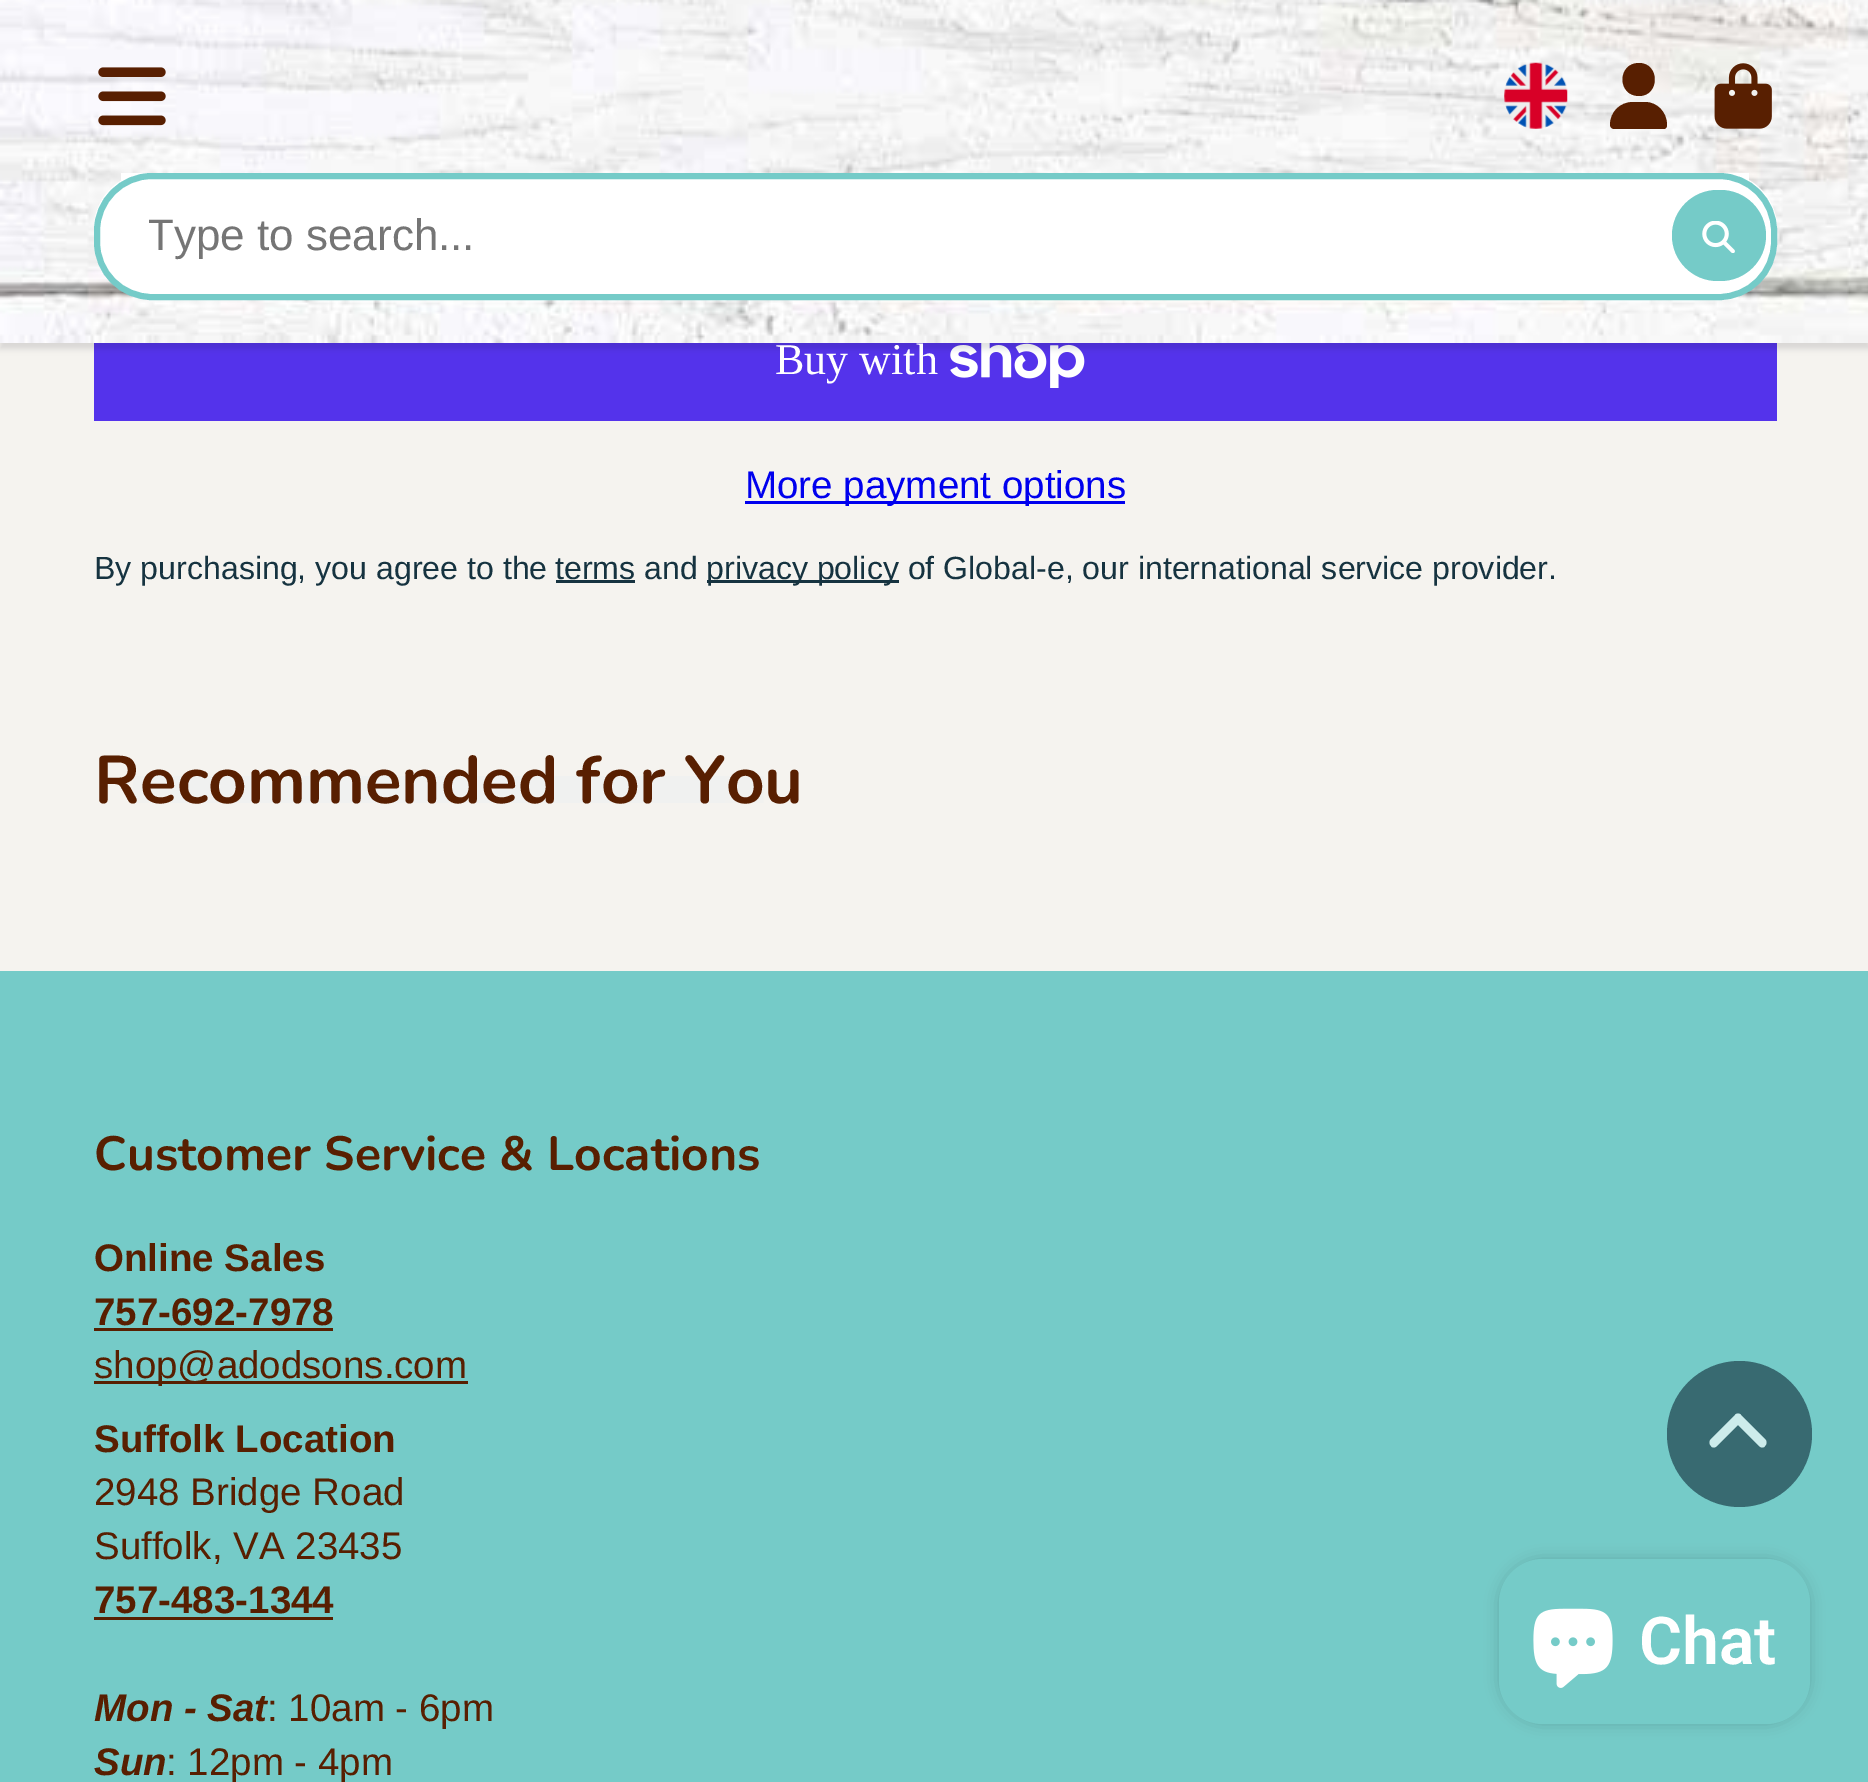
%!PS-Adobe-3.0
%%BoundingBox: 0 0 1868 1782
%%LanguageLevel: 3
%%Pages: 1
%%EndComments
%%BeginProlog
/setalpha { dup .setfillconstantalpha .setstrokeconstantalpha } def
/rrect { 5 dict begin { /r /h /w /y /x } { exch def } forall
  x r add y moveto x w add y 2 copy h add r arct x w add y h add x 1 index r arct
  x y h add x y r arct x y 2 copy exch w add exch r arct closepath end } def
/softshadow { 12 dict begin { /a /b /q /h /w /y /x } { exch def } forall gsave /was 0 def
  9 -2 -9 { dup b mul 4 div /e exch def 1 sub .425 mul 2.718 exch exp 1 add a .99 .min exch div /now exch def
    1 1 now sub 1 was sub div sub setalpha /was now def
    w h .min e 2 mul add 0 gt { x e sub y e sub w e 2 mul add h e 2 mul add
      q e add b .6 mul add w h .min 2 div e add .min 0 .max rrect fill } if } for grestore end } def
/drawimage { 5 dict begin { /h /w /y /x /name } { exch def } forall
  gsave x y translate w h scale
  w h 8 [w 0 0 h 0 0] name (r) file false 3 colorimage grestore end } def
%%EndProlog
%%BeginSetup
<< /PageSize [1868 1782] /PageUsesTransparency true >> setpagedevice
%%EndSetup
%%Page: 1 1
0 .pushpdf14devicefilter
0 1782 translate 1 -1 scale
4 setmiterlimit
0.961 0.953 0.937 setrgbcolor
0 0 1868 1782 rectfill
0.329 0.2 0.922 setrgbcolor
94 343 1683 78 rectfill
(images/6.raw) 950 343 135 45 drawimage
0.043 0.098 0.11 setrgbcolor
0 6 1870 343 0 3 0.12 softshadow
(images/1.raw) 0 0 1868 343 drawimage
(images/2.raw) 98 67 68 59 drawimage
(images/3.raw) 1504 62 64 67 drawimage
0.345 0.122 0.004 setrgbcolor
newpath 1639 96 moveto 1660 96 1660 63 1639 63 curveto 1617 63 1617 96 1639 96 curveto closepath 1633 102 moveto 1620 102 1610 112 1610 125 curveto 1610 127 1612 129 1614 129 curveto 1664 129 lineto 1666 129 1667 127 1667 125 curveto 1667 112 1657 102 1645 102 curveto closepath fill
(images/4.raw) 1714 63 58 66 drawimage
1 setgray
94 173 1683 110 55 rrect fill
121 173 1628 8 rectfill
97 176 1677 121 55 rrect gsave fill grestore
0.459 0.796 0.784 setrgbcolor
6 setlinewidth
stroke
1672 190 94 91 45.5 rrect fill
(images/5.raw) 1702 221 33 32 drawimage
0 0 0.933 setrgbcolor
745 501 380 3 rectfill
0.086 0.2 0.251 setrgbcolor
556 580 79 3 rectfill
707 580 192 3 rectfill
gsave newpath 133 776 moveto 764 776 lineto 764 803 lineto 133 803 lineto closepath clip newpath
<< /ShadingType 2 /ColorSpace /DeviceRGB /Coords [77 789 820 789] /Extend [true true] /Function << /FunctionType 3 /Domain [0 1] /Functions [<< /FunctionType 2 /Domain [0 1] /C0 [0.961 0.953 0.937] /C1 [0.941 0.945 0.941] /N 1 >> << /FunctionType 2 /Domain [0 1] /C0 [0.941 0.945 0.941] /C1 [0.941 0.945 0.941] /N 1 >> << /FunctionType 2 /Domain [0 1] /C0 [0.941 0.945 0.941] /C1 [0.961 0.953 0.937] /N 1 >>] /Bounds [0.15 0.85] /Encode [0 1 0 1 0 1] >> >> shfill grestore
0.459 0.796 0.784 setrgbcolor
0 971 1868 811 rectfill
0.345 0.122 0.004 setrgbcolor
94 1328 239 3 rectfill
94 1381 374 3 rectfill
94 1617 239 3 rectfill
0.22 0.416 0.443 setrgbcolor
1667 1361 145 146 72.5 rrect fill
0.804 0.925 0.922 setrgbcolor
newpath 1735 1415 moveto 1736 1413 1740 1413 1741 1415 curveto 1765 1439 lineto 1767 1441 1767 1444 1765 1446 curveto 1764 1448 1761 1448 1759 1446 curveto 1738 1425 lineto 1717 1446 lineto 1715 1448 1712 1448 1711 1446 curveto 1709 1444 1709 1441 1711 1439 curveto closepath fill
0 setgray
1499 1559 311 165 44 7 0.15 softshadow
0.459 0.796 0.784 setrgbcolor
1499 1559 311 165 44 rrect fill
(images/7.raw) 1533 1608 80 80 drawimage
gsave
149 212 1575 49 rectclip
/LiberationSans-Regular [44 0 0 -44 0 0] selectfont
0.459 setgray
147 250 moveto (Type to search...) show
grestore
/LiberationSerif-Regular [44 0 0 -44 0 0] selectfont
1 setgray
775 374 moveto (Buy with) show
/LiberationSans-Regular [38.5 0 0 -38.5 0 0] selectfont
0 0 0.933 setrgbcolor
745 498 moveto (More payment options) show
/LiberationSans-Regular [32.1 0 0 -32.1 0 0] selectfont
0.086 0.2 0.251 setrgbcolor
94 579 moveto (By purchasing, you agree to the) show
555 579 moveto (terms and) show
706 579 moveto (privacy policy of Global-e, our international service provider.) show
/Nunito-Bold [67.25 0 0 -67.25 0 0] selectfont
0.345 0.122 0.004 setrgbcolor
94 803 moveto (Recommended for You) show
/Nunito-Bold [48.1 0 0 -48.1 0 0] selectfont
94 1170 moveto (Customer Service & Locations) show
/LiberationSans-Bold [38.5 0 0 -38.5 0 0] selectfont
94 1271 moveto (Online Sales) show
94 1325 moveto (757-692-7978) show
/LiberationSans-Regular [38.5 0 0 -38.5 0 0] selectfont
94 1378 moveto (shop@adodsons.com) show
/LiberationSans-Bold [38.5 0 0 -38.5 0 0] selectfont
94 1452 moveto (Suffolk Location) show
/LiberationSans-Regular [38.5 0 0 -38.5 0 0] selectfont
94 1505 moveto (2948 Bridge Road) show
94 1559 moveto (Suffolk, VA 23435) show
/LiberationSans-Bold [38.5 0 0 -38.5 0 0] selectfont
94 1613 moveto (757-483-1344) show
/LiberationSans-BoldItalic [38.5 0 0 -38.5 0 0] selectfont
94 1721 moveto (Mon - Sat) show
/LiberationSans-Regular [38.5 0 0 -38.5 0 0] selectfont
267 1721 moveto (: 10am - 6pm) show
/LiberationSans-BoldItalic [38.5 0 0 -38.5 0 0] selectfont
94 1775 moveto (Sun) show
/LiberationSans-Regular [38.5 0 0 -38.5 0 0] selectfont
166 1775 moveto (: 12pm - 4pm) show
/Roboto-SemiBold [66 0 0 -66 0 0] selectfont
1 setgray
1639 1664 moveto (Chat) show
.poppdf14devicefilter showpage
%%EOF
